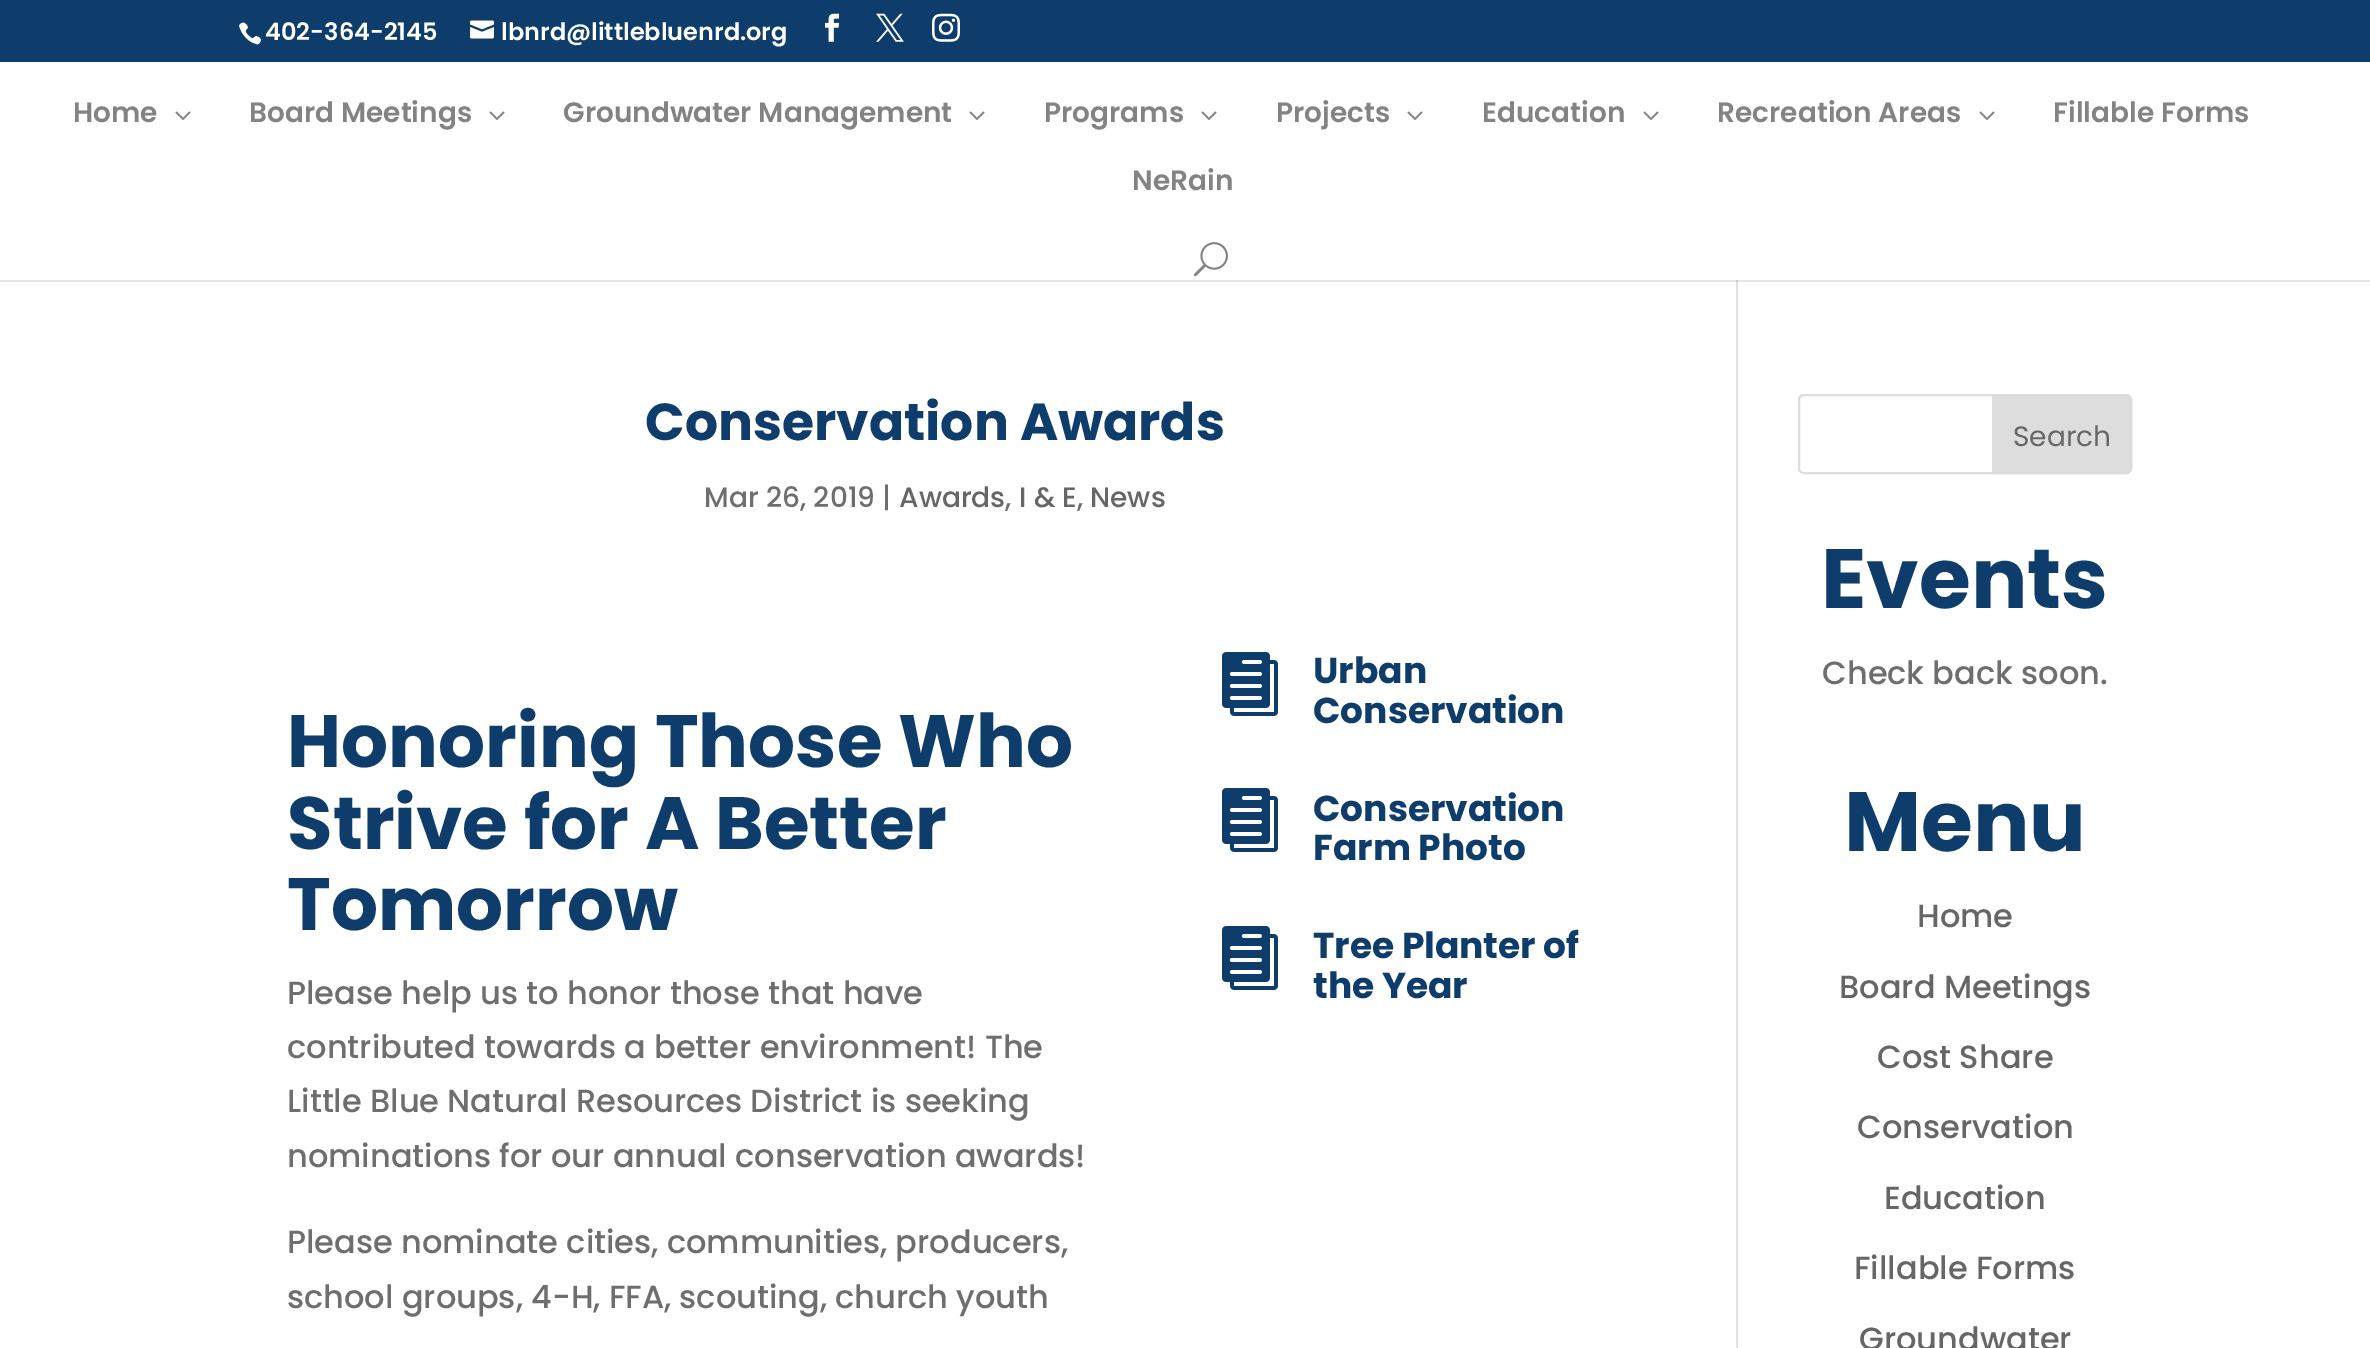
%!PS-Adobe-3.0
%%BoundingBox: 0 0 2370 1348
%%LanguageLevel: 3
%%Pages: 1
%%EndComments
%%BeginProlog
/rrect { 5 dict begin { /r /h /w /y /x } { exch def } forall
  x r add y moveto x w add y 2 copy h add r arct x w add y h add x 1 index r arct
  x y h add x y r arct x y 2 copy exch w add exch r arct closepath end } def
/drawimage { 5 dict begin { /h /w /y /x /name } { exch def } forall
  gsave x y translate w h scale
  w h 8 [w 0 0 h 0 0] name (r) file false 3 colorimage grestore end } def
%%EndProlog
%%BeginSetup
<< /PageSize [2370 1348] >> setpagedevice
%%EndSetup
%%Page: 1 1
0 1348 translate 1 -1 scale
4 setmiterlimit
1 setgray
0 0 2370 1348 rectfill
0.902 setgray
0 280 2370 2 rectfill
0.055 0.239 0.424 setrgbcolor
0 0 2370 62 rectfill
(images/1.raw) 239 22 22 23 drawimage
(images/2.raw) 470 20 24 19 drawimage
(images/3.raw) 825 13 15 29 drawimage
(images/4.raw) 876 13 28 29 drawimage
(images/5.raw) 932 13 28 29 drawimage
0.886 setgray
1736 278 2 1070 rectfill
1 setgray
1736 278 2 2 rectfill
(images/6.raw) 175 111 16 9 drawimage
(images/6.raw) 489 111 16 9 drawimage
(images/6.raw) 969 111 16 9 drawimage
(images/6.raw) 1201 111 16 9 drawimage
(images/6.raw) 1407 111 16 9 drawimage
(images/6.raw) 1643 111 16 9 drawimage
(images/6.raw) 1979 111 16 9 drawimage
(images/7.raw) 1193 242 35 35 drawimage
0.796 setgray
1736 280 2 2 rectfill
(images/8.raw) 1222 652 56 64 drawimage
(images/8.raw) 1222 788 56 64 drawimage
(images/8.raw) 1222 926 56 64 drawimage
0.867 setgray
2 setlinewidth
1799 395 332 78 5 rrect stroke
newpath 1993 395 moveto 2126 395 lineto 2129 395 2131 397 2131 400 curveto 2131 468 lineto 2131 471 2129 473 2126 473 curveto 1993 473 lineto closepath gsave fill grestore
stroke
/Poppins-SemiBold [24 0 0 -24 0 0] selectfont
1 setgray
265 40 moveto (402-364-2145) show
501 40 moveto (lbnrd@littlebluenrd.org) show
/Poppins-SemiBold [28 0 0 -28 0 0] selectfont
0.514 setgray
73 122 moveto (Home) show
249 122 moveto (Board Meetings) show
563 122 moveto (Groundwater Management) show
1044 122 moveto (Programs) show
1276 122 moveto (Projects) show
1482 122 moveto (Education) show
1717 122 moveto (Recreation Areas) show
2053 122 moveto (Fillable Forms) show
1132 190 moveto (NeRain) show
/Poppins-Bold [52 0 0 -52 0 0] selectfont
0.055 0.239 0.424 setrgbcolor
645 440 moveto (Conservation Awards) show
/Poppins-Medium [28 0 0 -28 0 0] selectfont
0.431 setgray
704 507 moveto (Mar 26, 2019 |) show
0.4 setgray
899 507 moveto (Awards) show
0.431 setgray
1005 507 moveto (,) show
0.4 setgray
1019 507 moveto (I & E) show
0.431 setgray
1077 507 moveto (,) show
0.4 setgray
1090 507 moveto (News) show
/Poppins-Bold [74 0 0 -74 0 0] selectfont
0.055 0.239 0.424 setrgbcolor
287 767 moveto (Honoring Those Who) show
287 849 moveto (Strive for A Better) show
287 930 moveto (Tomorrow) show
/Poppins-Medium [32 0 0 -32 0 0] selectfont
0.431 setgray
287 1004 moveto (Please help us to honor those that have) show
287 1058 moveto (contributed towards a better environment! The) show
287 1112 moveto (Little Blue Natural Resources District is seeking) show
287 1167 moveto (nominations for our annual conservation awards!) show
287 1253 moveto (Please nominate cities, communities, producers,) show
287 1308 moveto (school groups, 4-H, FFA, scouting, church youth) show
/Poppins-Bold [36 0 0 -36 0 0] selectfont
0.055 0.239 0.424 setrgbcolor
1313 683 moveto (Urban) show
1313 723 moveto (Conservation) show
1313 821 moveto (Conservation) show
1313 860 moveto (Farm Photo) show
1313 958 moveto (Tree Planter of) show
1313 998 moveto (the Year) show
/Poppins-Regular [28 0 0 -28 0 0] selectfont
0.4 setgray
2013 446 moveto (Search) show
/Poppins-Bold [84 0 0 -84 0 0] selectfont
0.055 0.239 0.424 setrgbcolor
1821 608 moveto (Events) show
/Poppins-Medium [32 0 0 -32 0 0] selectfont
0.431 setgray
1822 684 moveto (Check back soon.) show
/Poppins-Bold [84 0 0 -84 0 0] selectfont
0.055 0.239 0.424 setrgbcolor
1844 851 moveto (Menu) show
/Poppins-Medium [32 0 0 -32 0 0] selectfont
0.4 setgray
1917 927 moveto (Home) show
1839 998 moveto (Board Meetings) show
1877 1068 moveto (Cost Share) show
1857 1138 moveto (Conservation) show
1884 1209 moveto (Education) show
1854 1279 moveto (Fillable Forms) show
1859 1350 moveto (Groundwater) show
showpage
%%EOF
